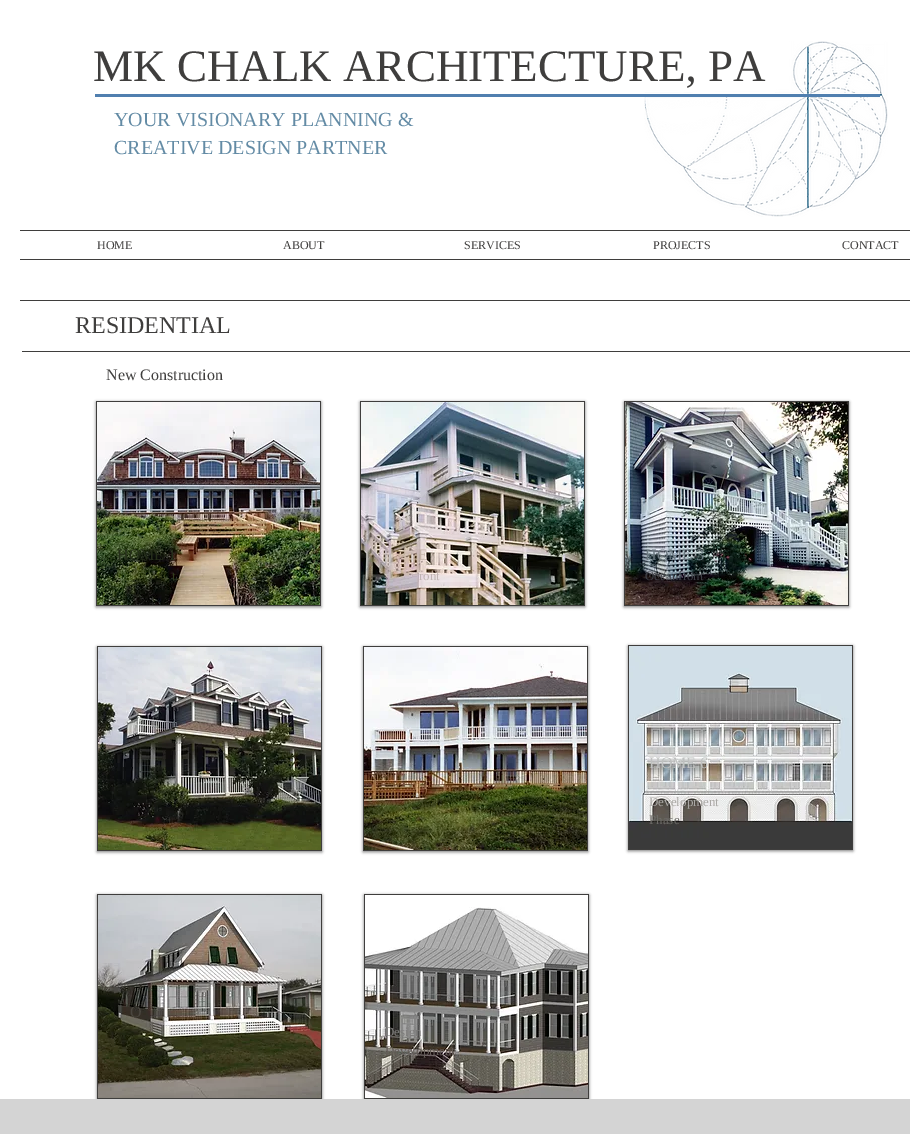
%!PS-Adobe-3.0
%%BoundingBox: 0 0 910 1134
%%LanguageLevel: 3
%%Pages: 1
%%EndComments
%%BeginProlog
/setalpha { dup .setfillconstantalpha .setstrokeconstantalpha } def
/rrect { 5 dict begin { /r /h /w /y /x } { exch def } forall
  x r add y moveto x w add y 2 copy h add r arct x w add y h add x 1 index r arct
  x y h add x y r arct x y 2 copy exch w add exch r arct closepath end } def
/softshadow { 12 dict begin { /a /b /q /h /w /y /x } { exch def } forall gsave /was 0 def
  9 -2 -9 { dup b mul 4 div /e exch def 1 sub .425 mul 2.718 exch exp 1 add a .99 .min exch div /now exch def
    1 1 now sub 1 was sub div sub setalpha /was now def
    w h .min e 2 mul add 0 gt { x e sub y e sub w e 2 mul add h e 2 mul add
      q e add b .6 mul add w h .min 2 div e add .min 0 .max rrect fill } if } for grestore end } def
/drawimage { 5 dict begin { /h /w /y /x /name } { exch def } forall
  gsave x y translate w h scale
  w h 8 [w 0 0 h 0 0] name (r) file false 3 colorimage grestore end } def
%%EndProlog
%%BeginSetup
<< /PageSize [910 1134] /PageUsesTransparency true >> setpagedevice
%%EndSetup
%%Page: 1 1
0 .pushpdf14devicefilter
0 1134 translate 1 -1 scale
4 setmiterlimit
1 setgray
0 0 910 1134 rectfill
0.247 0.243 0.239 setrgbcolor
20 230 890 1 rectfill
20 259 890 1 rectfill
20 300 890 1 rectfill
22 351 888 1 rectfill
0 setgray
96 402 225 205 0 1.5 0.5 softshadow
0.247 0.243 0.239 setrgbcolor
96 401 225 205 rectfill
(images/2.raw) 97 402 223 203 drawimage
0 setgray
360 402 225 205 0 1.5 0.5 softshadow
0.247 0.243 0.239 setrgbcolor
360 401 225 205 rectfill
(images/3.raw) 361 402 223 203 drawimage
0 setgray
624 402 225 205 0 1.5 0.5 softshadow
0.247 0.243 0.239 setrgbcolor
624 401 225 205 rectfill
(images/4.raw) 625 402 223 203 drawimage
0 setgray
97 647 225 205 0 1.5 0.5 softshadow
0.247 0.243 0.239 setrgbcolor
97 646 225 205 rectfill
(images/5.raw) 98 647 223 203 drawimage
0 setgray
363 647 225 205 0 1.5 0.5 softshadow
0.247 0.243 0.239 setrgbcolor
363 646 225 205 rectfill
(images/6.raw) 364 647 223 203 drawimage
0 setgray
628 646 225 205 0 1.5 0.5 softshadow
0.247 0.243 0.239 setrgbcolor
628 645 225 205 rectfill
(images/7.raw) 629 646 223 203 drawimage
0 setgray
97 895 225 205 0 1.5 0.5 softshadow
0.247 0.243 0.239 setrgbcolor
97 894 225 205 rectfill
(images/8.raw) 98 895 223 203 drawimage
0 setgray
364 895 225 205 0 1.5 0.5 softshadow
0.247 0.243 0.239 setrgbcolor
364 894 225 205 rectfill
(images/9.raw) 365 895 223 203 drawimage
0.831 setgray
0 1099 910 35 rectfill
/LiberationSerif-Regular [45 0 0 -45 0 0] selectfont
0.247 0.243 0.239 setrgbcolor
93 81 moveto (MK CHALK ARCHITECTURE, PA) show
(images/1.raw) 644 41 244 176 drawimage
0.314 0.498 0.686 setrgbcolor
95 94 785 3 rectfill
/LiberationSerif-Regular [20 0 0 -20 0 0] selectfont
0.388 0.545 0.647 setrgbcolor
114 126 moveto (YOUR VISIONARY PLANNING &) show
114 154 moveto (CREATIVE DESIGN PARTNER) show
/LiberationSerif-Regular [12 0 0 -12 0 0] selectfont
0.247 0.243 0.239 setrgbcolor
97 249 moveto (HOME) show
283 249 moveto (ABOUT) show
464 249 moveto (SERVICES) show
653 249 moveto (PROJECTS) show
842 249 moveto (CONTACT) show
/LiberationSerif-Regular [24 0 0 -24 0 0] selectfont
75 333 moveto (RESIDENTIAL) show
/LiberationSerif-Regular [16 0 0 -16 0 0] selectfont
106 380 moveto (New Construction) show
0.145 0.18 0.102 setrgbcolor
117 560 moveto (HOME 1) show
/LiberationSerif-Regular [13 0 0 -13 0 0] selectfont
0.2 0.239 0.114 setrgbcolor
172 580 moveto (t) show
/LiberationSerif-Regular [16 0 0 -16 0 0] selectfont
0.773 0.706 0.667 setrgbcolor
418 560 moveto (E) show
/LiberationSerif-Regular [13 0 0 -13 0 0] selectfont
0.753 0.706 0.702 setrgbcolor
419 580 moveto (ront) show
/LiberationSerif-Regular [16 0 0 -16 0 0] selectfont
0.427 0.478 0.51 setrgbcolor
645 560 moveto (HOME 3) show
/LiberationSerif-Regular [13 0 0 -13 0 0] selectfont
0.239 0.247 0.275 setrgbcolor
645 580 moveto (Oceanfront) show
/LiberationSerif-Regular [16 0 0 -16 0 0] selectfont
0.749 0.757 0.753 setrgbcolor
649 768 moveto (HOME 6) show
/LiberationSerif-Regular [13 0 0 -13 0 0] selectfont
0.667 0.659 0.647 setrgbcolor
649 806 moveto (Development) show
0.427 0.42 0.404 setrgbcolor
649 824 moveto (Phase) show
/LiberationSerif-Regular [16 0 0 -16 0 0] selectfont
0.29 0.275 0.247 setrgbcolor
130 1017 moveto (O) show
/LiberationSerif-Regular [13 0 0 -13 0 0] selectfont
0.486 0.482 0.478 setrgbcolor
385 1036 moveto (Design) show
0.388 0.361 0.341 setrgbcolor
385 1055 moveto (Development) show
.poppdf14devicefilter showpage
%%EOF
